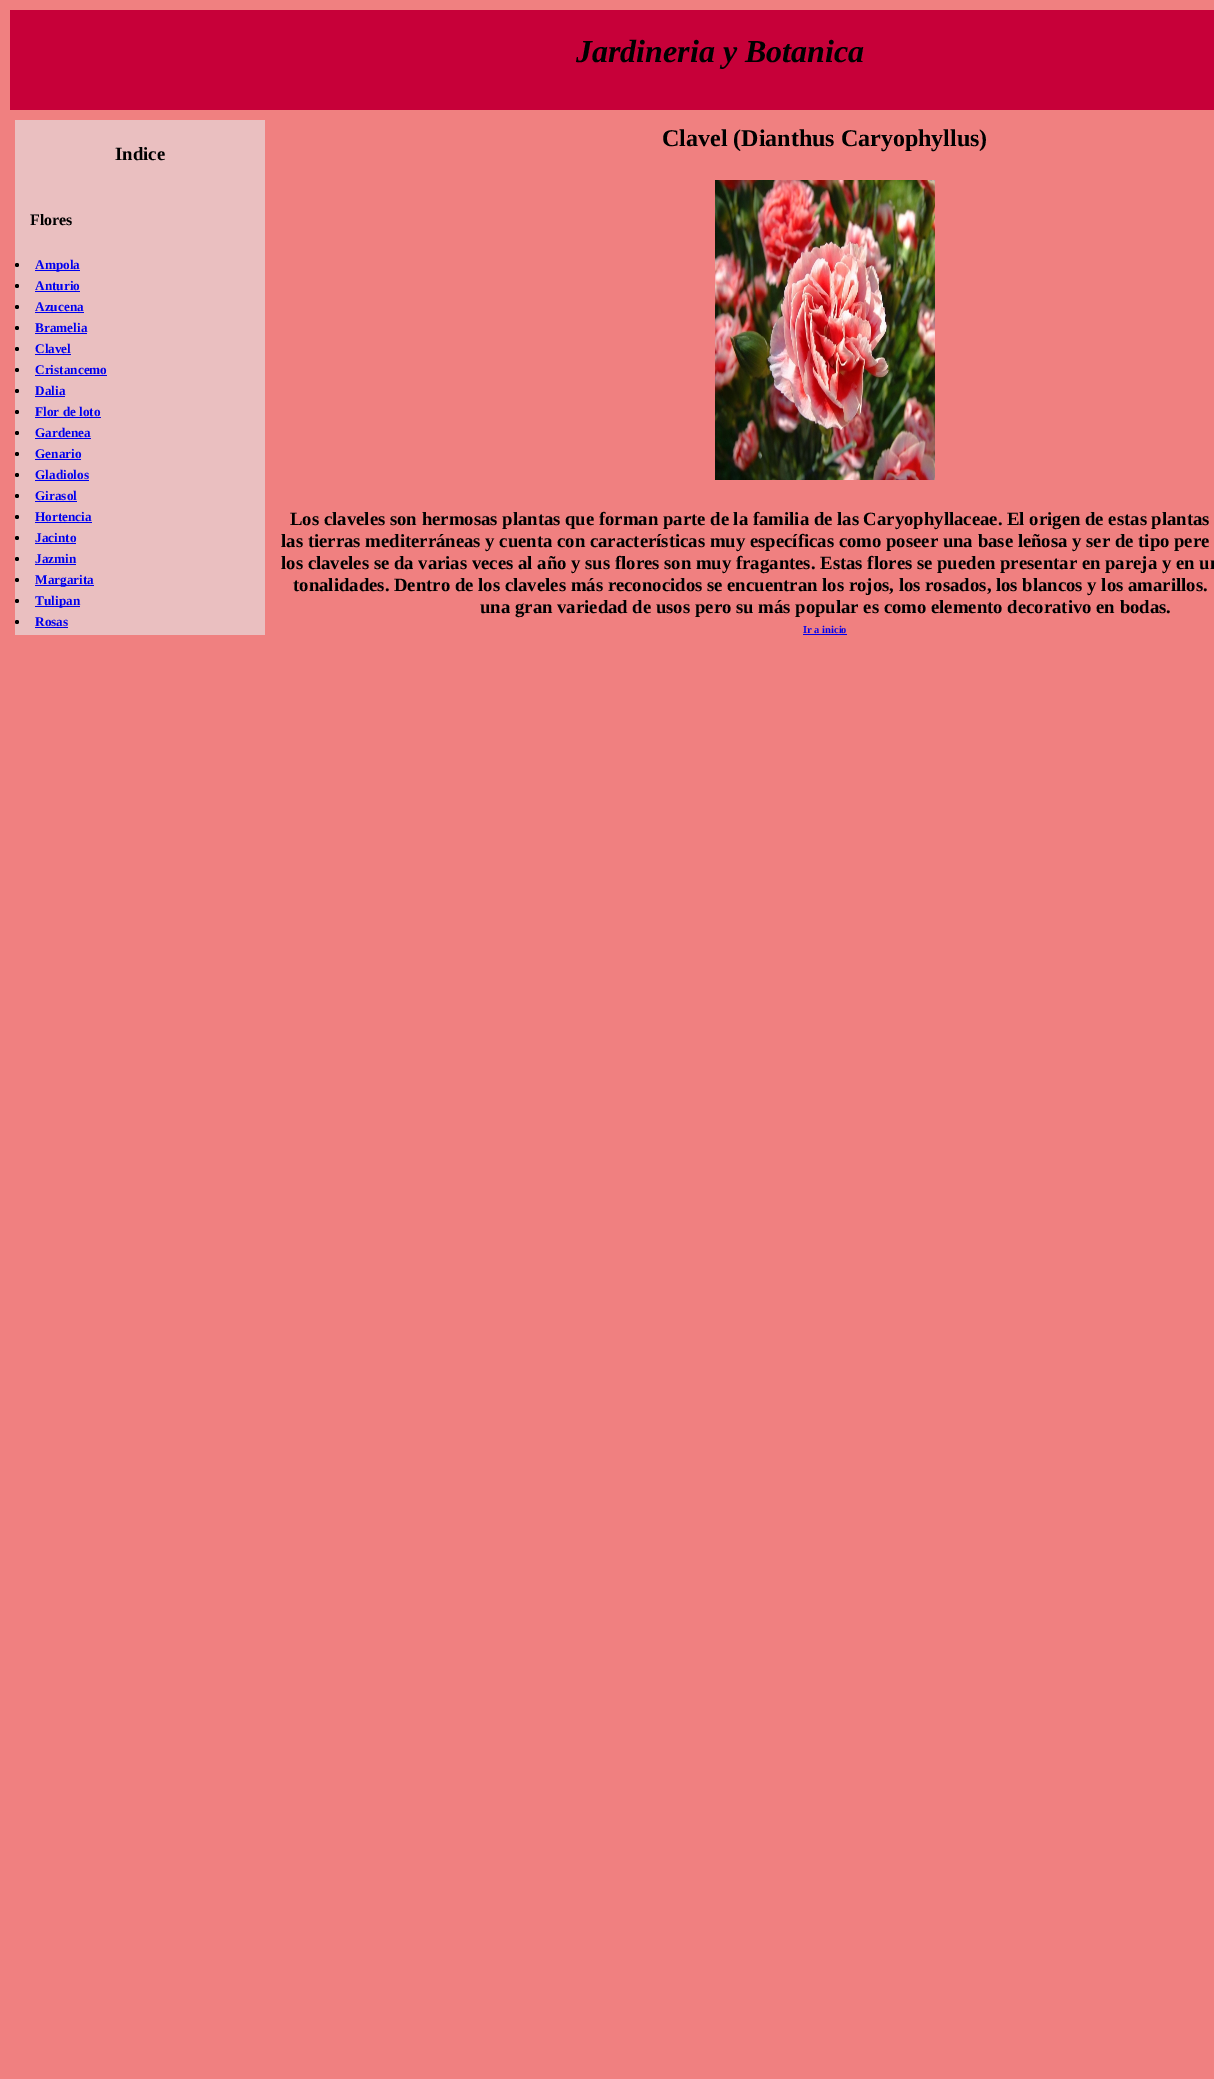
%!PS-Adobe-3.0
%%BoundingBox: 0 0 1214 2079
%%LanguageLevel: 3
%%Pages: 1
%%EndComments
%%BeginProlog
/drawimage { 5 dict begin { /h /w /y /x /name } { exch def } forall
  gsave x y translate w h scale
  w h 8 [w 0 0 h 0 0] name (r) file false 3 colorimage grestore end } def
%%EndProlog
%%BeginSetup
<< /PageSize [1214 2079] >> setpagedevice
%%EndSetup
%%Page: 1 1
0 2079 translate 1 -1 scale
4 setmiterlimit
0.941 0.502 0.502 setrgbcolor
0 0 1214 2079 rectfill
0.78 0 0.224 setrgbcolor
10 10 1204 100 rectfill
0.918 0.749 0.753 setrgbcolor
15 120 250 515 rectfill
0 setgray
newpath 17 265 2 0 360 arc closepath fill
0 0 0.933 setrgbcolor
35 270 45 1 rectfill
0 setgray
newpath 17 286 2 0 360 arc closepath fill
0 0 0.933 setrgbcolor
35 291 45 1 rectfill
0 setgray
newpath 17 307 2 0 360 arc closepath fill
0 0 0.933 setrgbcolor
35 312 49 1 rectfill
0 setgray
newpath 17 328 2 0 360 arc closepath fill
0 0 0.933 setrgbcolor
35 333 52 1 rectfill
0 setgray
newpath 17 349 2 0 360 arc closepath fill
0 0 0.933 setrgbcolor
35 354 36 1 rectfill
0 setgray
newpath 17 370 2 0 360 arc closepath fill
0 0 0.933 setrgbcolor
35 375 72 1 rectfill
0 setgray
newpath 17 391 2 0 360 arc closepath fill
0 0 0.933 setrgbcolor
35 396 30 1 rectfill
0 setgray
newpath 17 412 2 0 360 arc closepath fill
0 0 0.933 setrgbcolor
35 417 66 1 rectfill
0 setgray
newpath 17 433 2 0 360 arc closepath fill
0 0 0.933 setrgbcolor
35 438 56 1 rectfill
0 setgray
newpath 17 454 2 0 360 arc closepath fill
0 0 0.933 setrgbcolor
35 459 46 1 rectfill
0 setgray
newpath 17 475 2 0 360 arc closepath fill
0 0 0.933 setrgbcolor
35 480 54 1 rectfill
0 setgray
newpath 17 496 2 0 360 arc closepath fill
0 0 0.933 setrgbcolor
35 501 42 1 rectfill
0 setgray
newpath 17 517 2 0 360 arc closepath fill
0 0 0.933 setrgbcolor
35 522 57 1 rectfill
0 setgray
newpath 17 538 2 0 360 arc closepath fill
0 0 0.933 setrgbcolor
35 543 41 1 rectfill
0 setgray
newpath 17 559 2 0 360 arc closepath fill
0 0 0.933 setrgbcolor
35 564 41 1 rectfill
0 setgray
newpath 17 580 2 0 360 arc closepath fill
0 0 0.933 setrgbcolor
35 585 59 1 rectfill
0 setgray
newpath 17 601 2 0 360 arc closepath fill
0 0 0.933 setrgbcolor
35 606 45 1 rectfill
0 setgray
newpath 17 622 2 0 360 arc closepath fill
0 0 0.933 setrgbcolor
35 627 33 1 rectfill
(images/1.raw) 715 180 220 300 drawimage
803 634 44 1 rectfill
/LiberationSerif-BoldItalic [32 0 0 -32 0 0] selectfont
0 setgray
576 62 moveto (Jardineria y Botanica) show
/LiberationSerif-Bold [18.72 0 0 -18.72 0 0] selectfont
115 160 moveto (Indice) show
/LiberationSerif-Bold [16 0 0 -16 0 0] selectfont
30 225 moveto (Flores) show
/LiberationSerif-Bold [13.25 0 0 -13.25 0 0] selectfont
0 0 0.933 setrgbcolor
35 269 moveto (Ampola) show
35 290 moveto (Anturio) show
35 311 moveto (Azucena) show
35 332 moveto (Bramelia) show
35 353 moveto (Clavel) show
35 374 moveto (Cristancemo) show
35 395 moveto (Dalia) show
35 416 moveto (Flor de loto) show
35 437 moveto (Gardenea) show
35 458 moveto (Genario) show
35 479 moveto (Gladiolos) show
35 500 moveto (Girasol) show
35 521 moveto (Hortencia) show
35 542 moveto (Jacinto) show
35 563 moveto (Jazmin) show
35 584 moveto (Margarita) show
35 605 moveto (Tulipan) show
35 626 moveto (Rosas) show
/LiberationSerif-Bold [24 0 0 -24 0 0] selectfont
0 setgray
662 146 moveto (Clavel \(Dianthus Caryophyllus\)) show
/LiberationSerif-Bold [18.72 0 0 -18.72 0 0] selectfont
290 525 moveto (Los claveles son hermosas plantas que forman parte de la familia de las Caryophyllaceae. El origen de estas plantas) show
281 547 moveto (las tierras mediterráneas y cuenta con características muy específicas como poseer una base leñosa y ser de tipo pere) show
281 569 moveto (los claveles se da varias veces al año y sus flores son muy fragantes. Estas flores se pueden presentar en pareja y en un) show
293 591 moveto (tonalidades. Dentro de los claveles más reconocidos se encuentran los rojos, los rosados, los blancos y los amarillos.) show
480 613 moveto (una gran variedad de usos pero su más popular es como elemento decorativo en bodas.) show
/LiberationSerif-Bold [10.5 0 0 -10.5 0 0] selectfont
0 0 0.933 setrgbcolor
803 633 moveto (Ir a inicio) show
showpage
%%EOF
